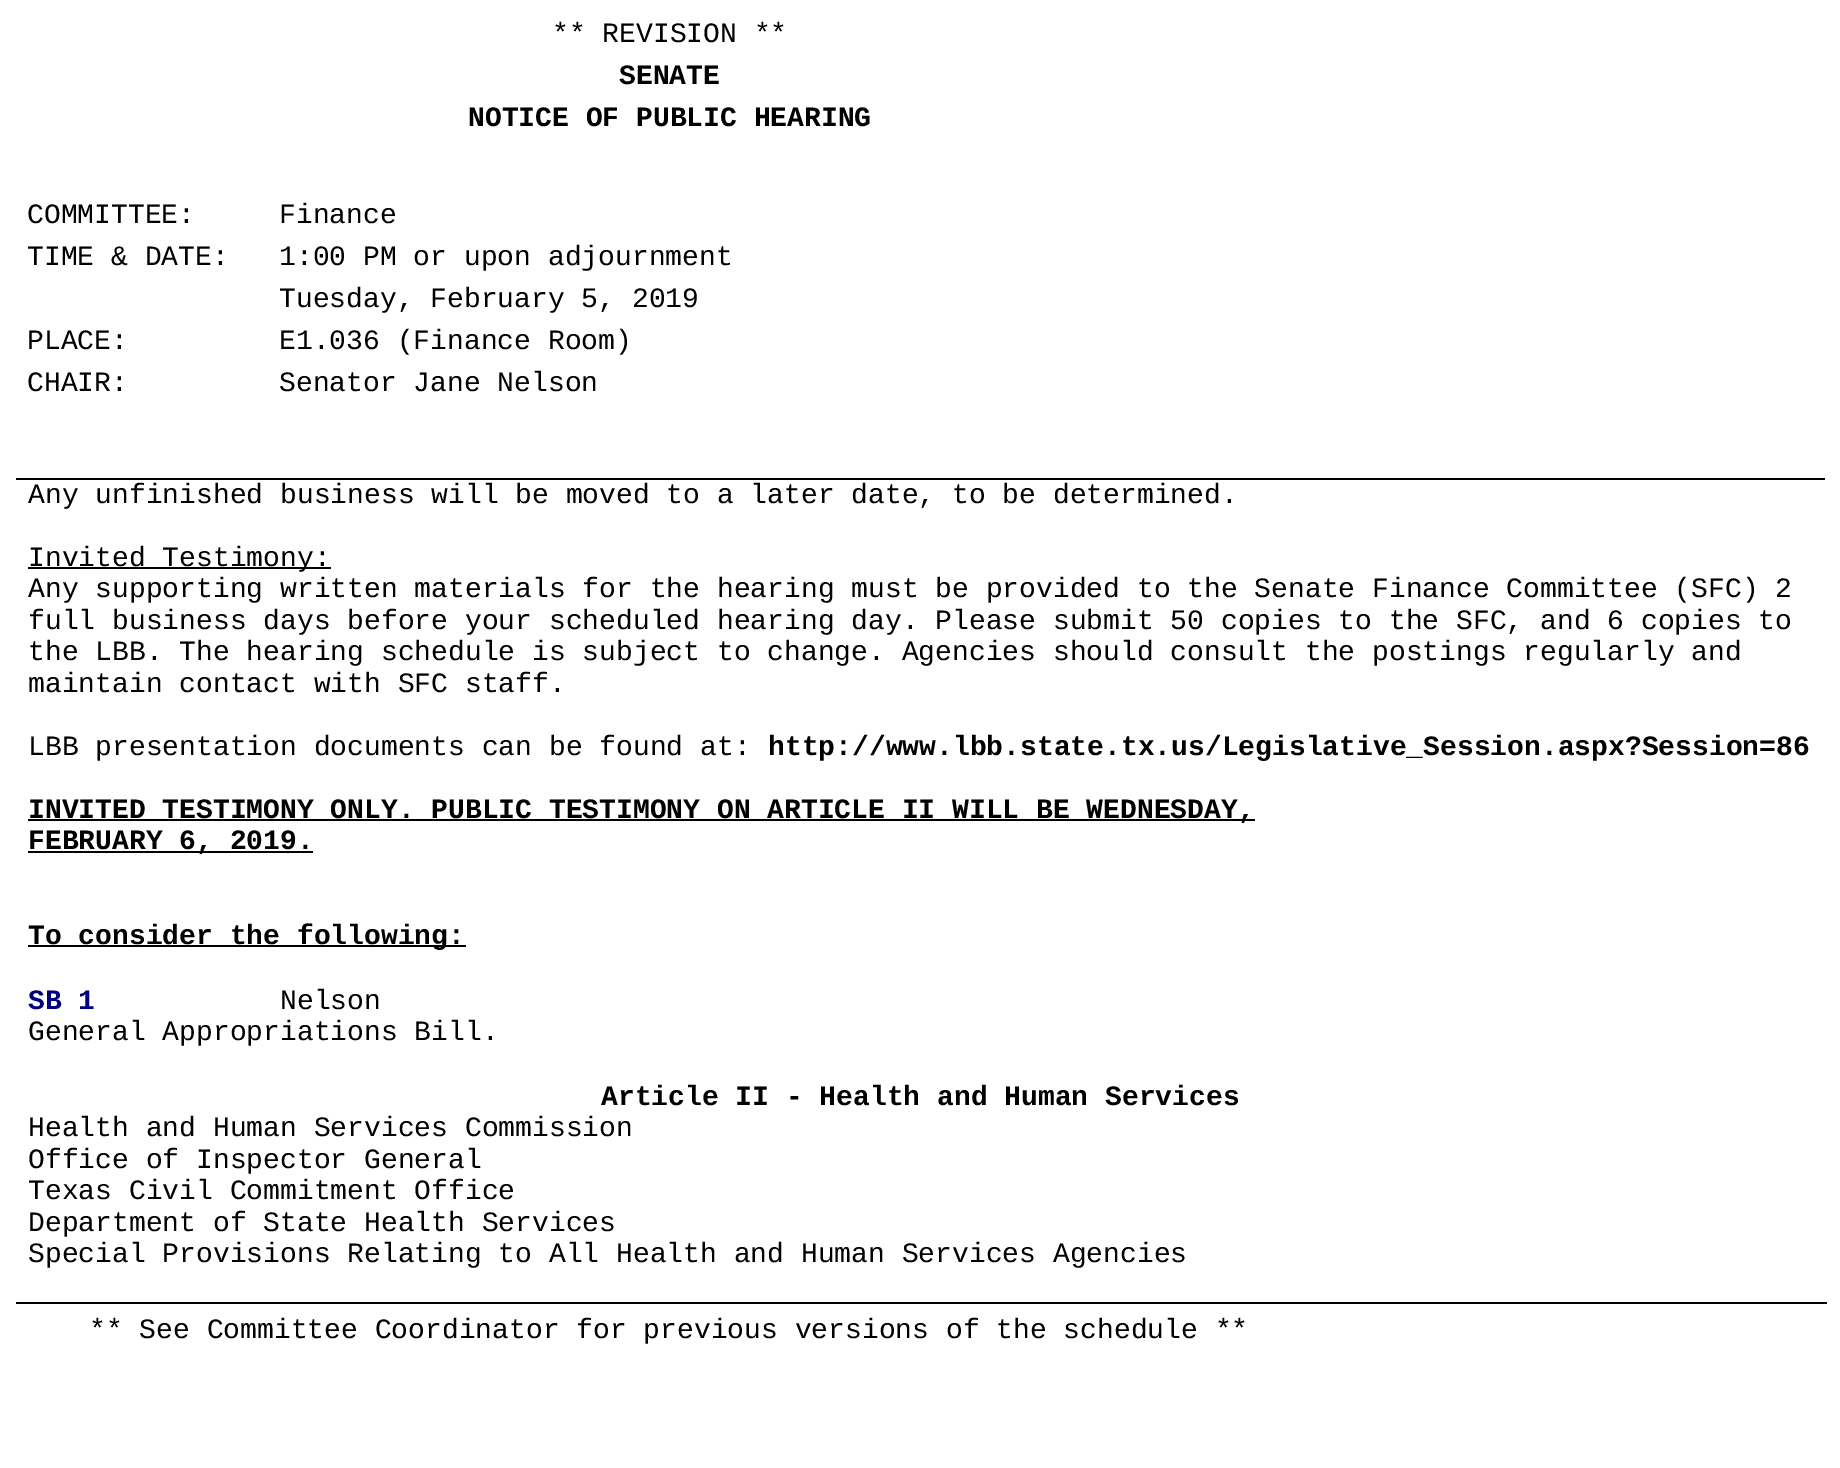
%!PS-Adobe-3.0
%%BoundingBox: 0 0 1840 1468
%%LanguageLevel: 3
%%Pages: 1
%%EndComments
%%BeginProlog
%%EndProlog
%%BeginSetup
<< /PageSize [1840 1468] >> setpagedevice
%%EndSetup
%%Page: 1 1
0 1468 translate 1 -1 scale
4 setmiterlimit
1 setgray
0 0 1840 1468 rectfill
0 setgray
14 478 1813 2 rectfill
1 setgray
1825 478 2 2 rectfill
14 478 2 2 rectfill
0 setgray
28 567 303 2 rectfill
28 819 1227 2 rectfill
28 851 285 2 rectfill
28 945 438 2 rectfill
14 1302 1813 2 rectfill
1 setgray
14 1302 2 2 rectfill
/LiberationMono-Regular [28 0 0 -28 0 0] selectfont
0 setgray
552 42 moveto (** REVISION **) show
/LiberationMono-Bold [28 0 0 -28 0 0] selectfont
619 84 moveto (SENATE) show
468 126 moveto (NOTICE OF PUBLIC HEARING) show
/LiberationMono-Regular [28 0 0 -28 0 0] selectfont
27 223 moveto (COMMITTEE:     Finance) show
27 265 moveto (TIME & DATE:   1:00 PM or upon adjournment) show
279 307 moveto (Tuesday, February 5, 2019) show
27 349 moveto (PLACE:         E1.036 \(Finance Room\)) show
27 391 moveto (CHAIR:         Senator Jane Nelson) show
28 503 moveto (Any unfinished business will be moved to a later date, to be determined.) show
28 566 moveto (Invited Testimony:) show
28 597 moveto (Any supporting written materials for the hearing must be provided to the Senate Finance Committee \(SFC\) 2) show
28 629 moveto (full business days before your scheduled hearing day. Please submit 50 copies to the SFC, and 6 copies to) show
28 660 moveto (the LBB. The hearing schedule is subject to change. Agencies should consult the postings regularly and) show
28 692 moveto (maintain contact with SFC staff.) show
28 755 moveto (LBB presentation documents can be found at:) show
/LiberationMono-Bold [28 0 0 -28 0 0] selectfont
768 755 moveto (http://www.lbb.state.tx.us/Legislative_Session.aspx?Session=86) show
28 818 moveto (INVITED TESTIMONY ONLY. PUBLIC TESTIMONY ON ARTICLE II WILL BE WEDNESDAY,) show
28 849 moveto (FEBRUARY 6, 2019.) show
28 944 moveto (To consider the following:) show
0 0 0.502 setrgbcolor
28 1009 moveto (SB 1) show
/LiberationMono-Regular [28 0 0 -28 0 0] selectfont
0 setgray
280 1009 moveto (Nelson) show
28 1040 moveto (General Appropriations Bill.) show
/LiberationMono-Bold [28 0 0 -28 0 0] selectfont
601 1105 moveto (Article II - Health and Human Services) show
/LiberationMono-Regular [28 0 0 -28 0 0] selectfont
28 1136 moveto (Health and Human Services Commission) show
28 1168 moveto (Office of Inspector General) show
28 1199 moveto (Texas Civil Commitment Office) show
28 1231 moveto (Department of State Health Services) show
28 1262 moveto (Special Provisions Relating to All Health and Human Services Agencies) show
89 1338 moveto (** See Committee Coordinator for previous versions of the schedule **) show
showpage
%%EOF
